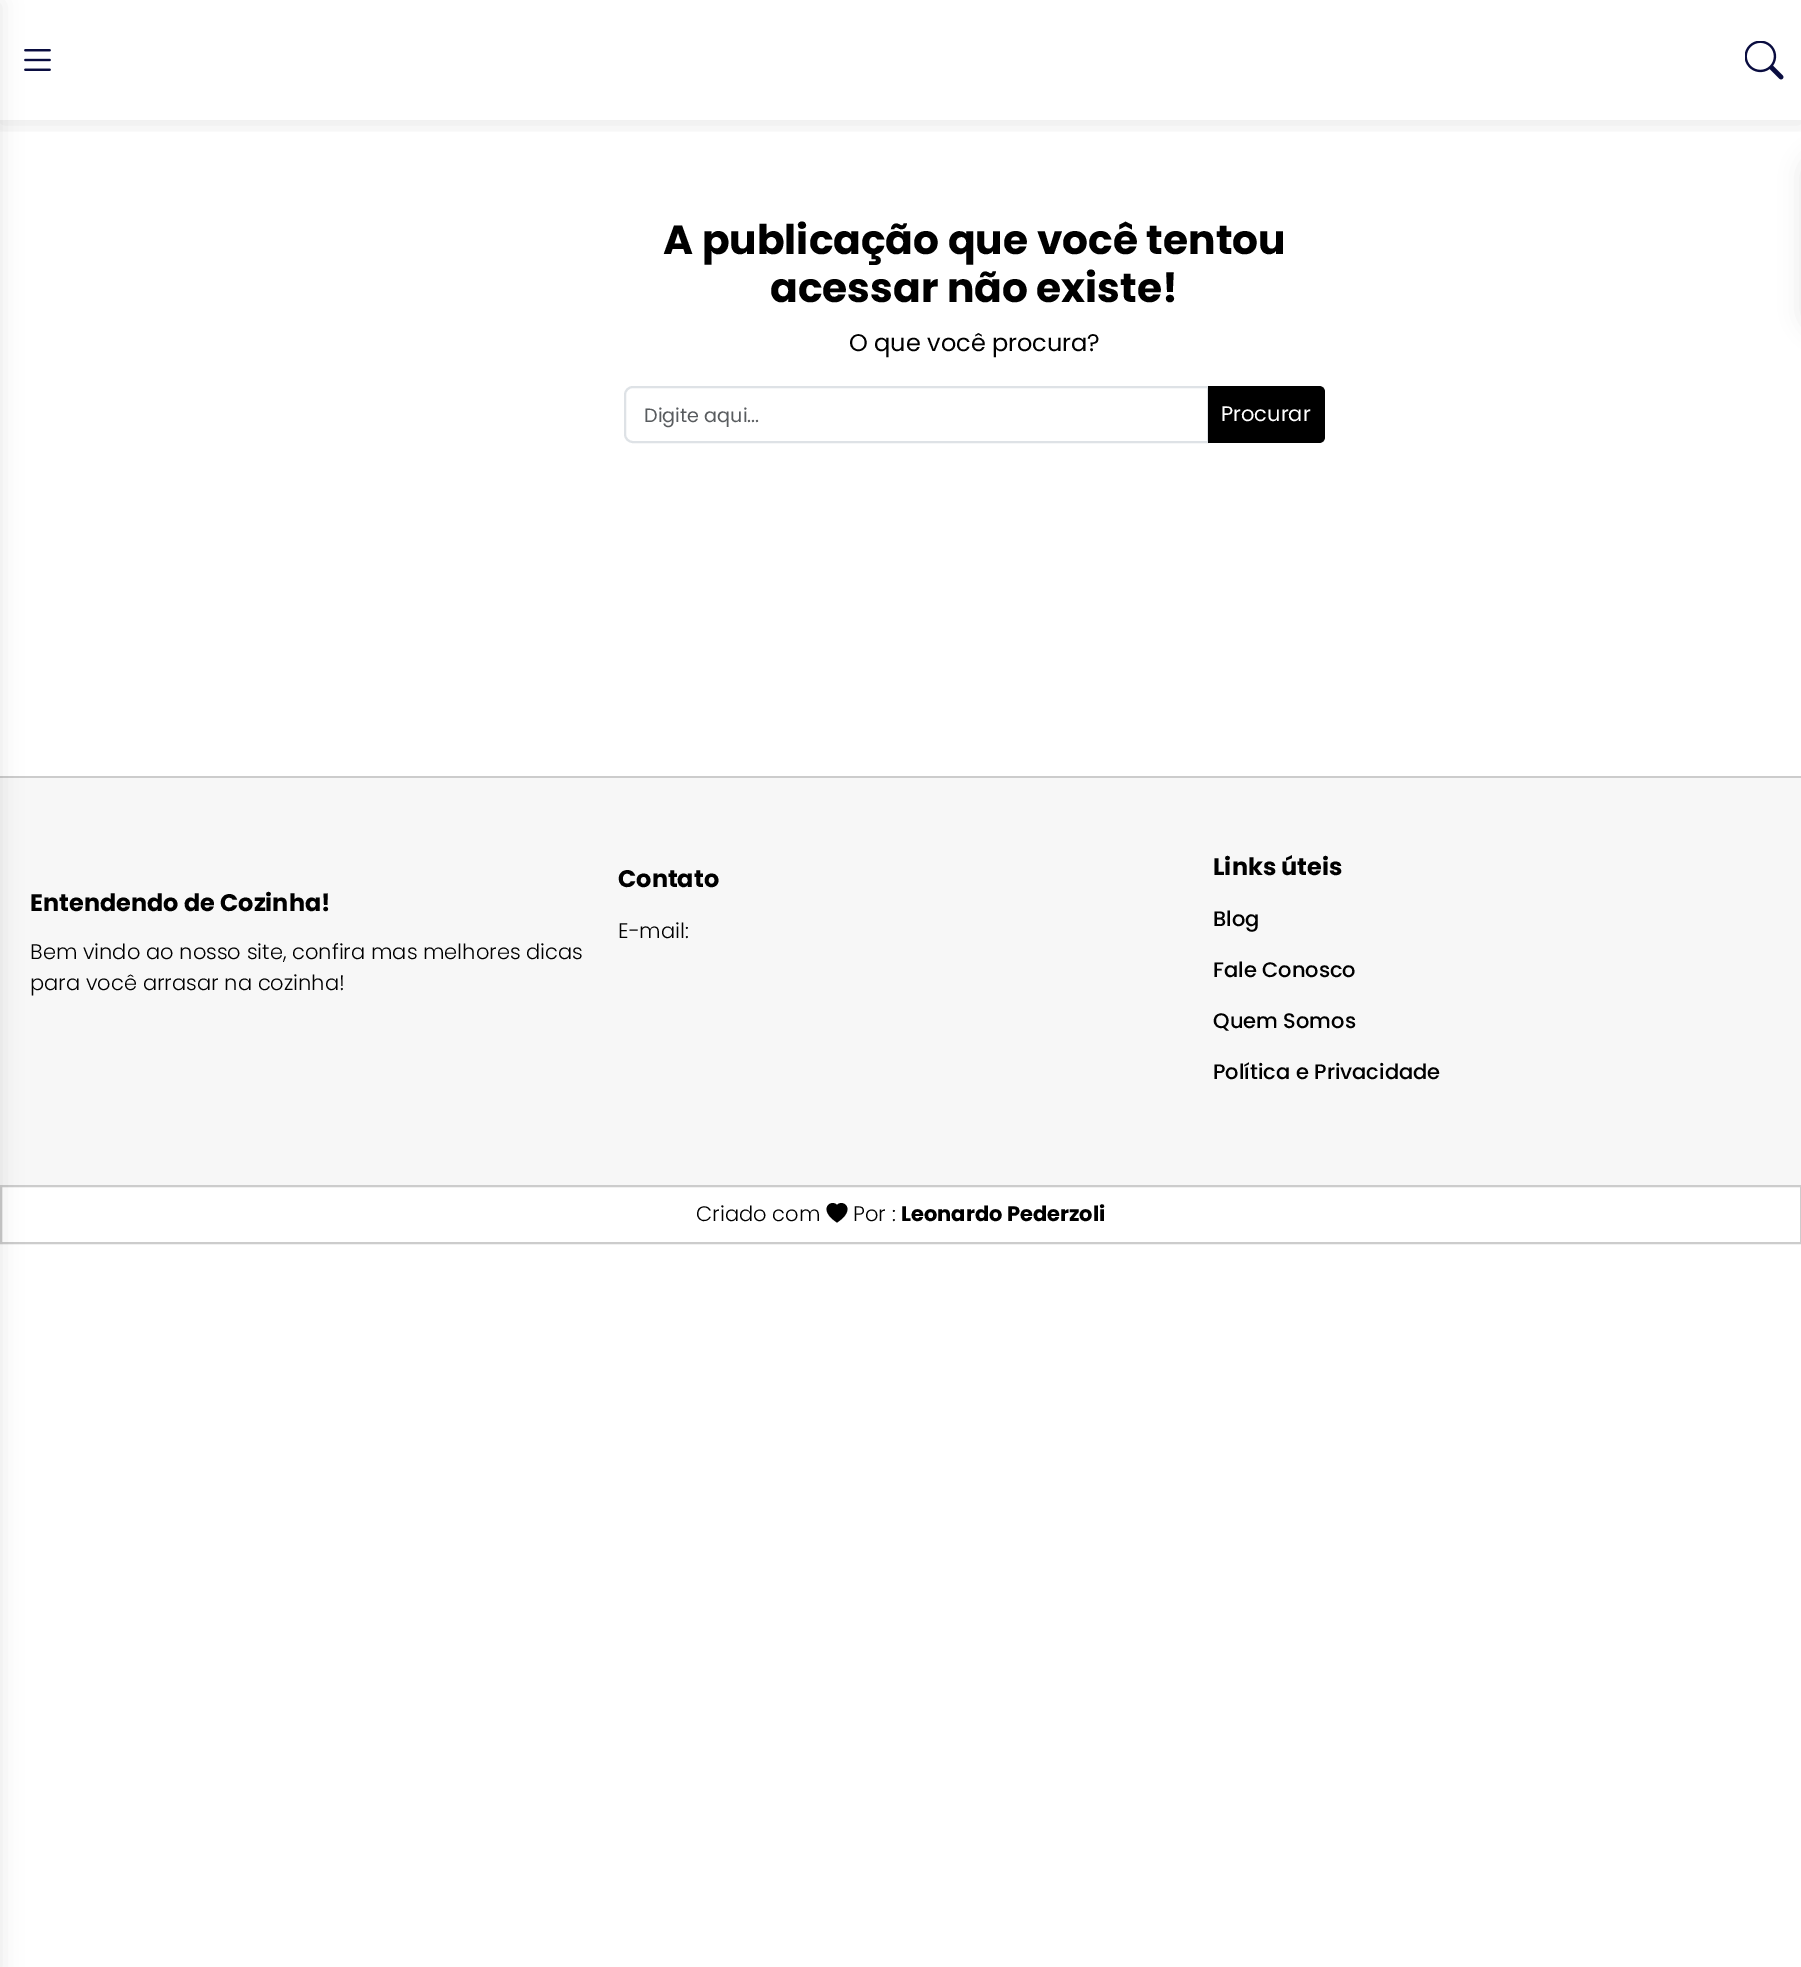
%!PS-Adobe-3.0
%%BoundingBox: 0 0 1801 1967
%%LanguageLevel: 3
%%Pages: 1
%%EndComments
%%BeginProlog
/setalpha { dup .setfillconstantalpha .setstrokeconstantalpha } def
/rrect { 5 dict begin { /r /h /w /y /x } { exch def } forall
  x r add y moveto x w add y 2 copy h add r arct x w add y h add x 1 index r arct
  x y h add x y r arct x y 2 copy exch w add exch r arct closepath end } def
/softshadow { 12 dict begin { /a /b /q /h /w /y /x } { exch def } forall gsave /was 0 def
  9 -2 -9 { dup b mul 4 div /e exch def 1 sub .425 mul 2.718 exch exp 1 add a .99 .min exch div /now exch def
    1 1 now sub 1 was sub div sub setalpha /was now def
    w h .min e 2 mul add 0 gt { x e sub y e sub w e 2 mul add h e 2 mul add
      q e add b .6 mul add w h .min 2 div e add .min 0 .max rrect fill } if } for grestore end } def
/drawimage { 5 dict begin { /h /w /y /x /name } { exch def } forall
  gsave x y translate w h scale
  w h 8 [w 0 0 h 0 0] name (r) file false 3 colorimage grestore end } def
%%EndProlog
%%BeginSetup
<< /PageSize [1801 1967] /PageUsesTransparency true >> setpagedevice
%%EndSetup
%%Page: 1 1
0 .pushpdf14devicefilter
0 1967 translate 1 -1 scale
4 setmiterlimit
1 setgray
0 0 1801 1967 rectfill
gsave
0 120 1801 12 rectclip
0 setgray
0 3 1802 120 0 11 0.1 softshadow
grestore
(images/1.raw) 24 49 27 22 drawimage
0.969 setgray
0 778 1801 407 rectfill
0.8 setgray
0 776 1801 2 rectfill
2 setlinewidth
1 1186 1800 57 rectstroke
0 setgray
-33 3 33 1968 0 11 0.1 softshadow
(images/2.raw) 1745 41 39 39 drawimage
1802 153 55 180 23 11 0.1 softshadow
0.871 0.886 0.902 setrgbcolor
newpath 633 387 moveto 1208 387 lineto 1208 442 lineto 633 442 lineto 628.5 442 625 438.5 625 434 curveto 625 395 lineto 625 390.5 628.5 387 633 387 curveto closepath stroke
0 setgray
newpath 1208 386 moveto 1319 386 lineto 1322.5 386 1325 388.5 1325 392 curveto 1325 437 lineto 1325 440.5 1322.5 443 1319 443 curveto 1208 443 lineto closepath fill
newpath 837 1205 moveto 843 1198.5 857 1209.5 837 1222.5 curveto 817 1209.5 831 1198.5 837 1205 curveto closepath fill
/Poppins-Bold [40.75 0 0 -40.75 0 0] selectfont
663 254 moveto (A publicação que você tentou) show
770 302 moveto (acessar não existe!) show
/Poppins-Regular [24 0 0 -24 0 0] selectfont
849 351 moveto (O que você procura?) show
/Poppins-Regular [19.25 0 0 -19.25 0 0] selectfont
0.349 0.361 0.373 setrgbcolor
644 422 moveto (Digite aqui...) show
/Poppins-Regular [21 0 0 -21 0 0] selectfont
1 setgray
1221 421 moveto (Procurar) show
/Poppins-Bold [24 0 0 -24 0 0] selectfont
0 setgray
30 911 moveto (Entendendo de Cozinha!) show
/Poppins-Light [21 0 0 -21 0 0] selectfont
30 959 moveto (Bem vindo ao nosso site, confira mas melhores dicas) show
30 990 moveto (para você arrasar na cozinha!) show
/Poppins-Bold [24 0 0 -24 0 0] selectfont
618 887 moveto (Contato) show
/Poppins-Light [21 0 0 -21 0 0] selectfont
618 938 moveto (E-mail:) show
/Poppins-Bold [24 0 0 -24 0 0] selectfont
1213 875 moveto (Links úteis) show
/Poppins-Medium [21 0 0 -21 0 0] selectfont
1213 926 moveto (Blog) show
1213 977 moveto (Fale Conosco) show
1213 1028 moveto (Quem Somos) show
1213 1079 moveto (Política e Privacidade) show
/Poppins-Light [21 0 0 -21 0 0] selectfont
696 1221 moveto (Criado com) show
853 1221 moveto (Por :) show
/Poppins-Bold [21 0 0 -21 0 0] selectfont
901 1221 moveto (Leonardo Pederzoli) show
.poppdf14devicefilter showpage
%%EOF
